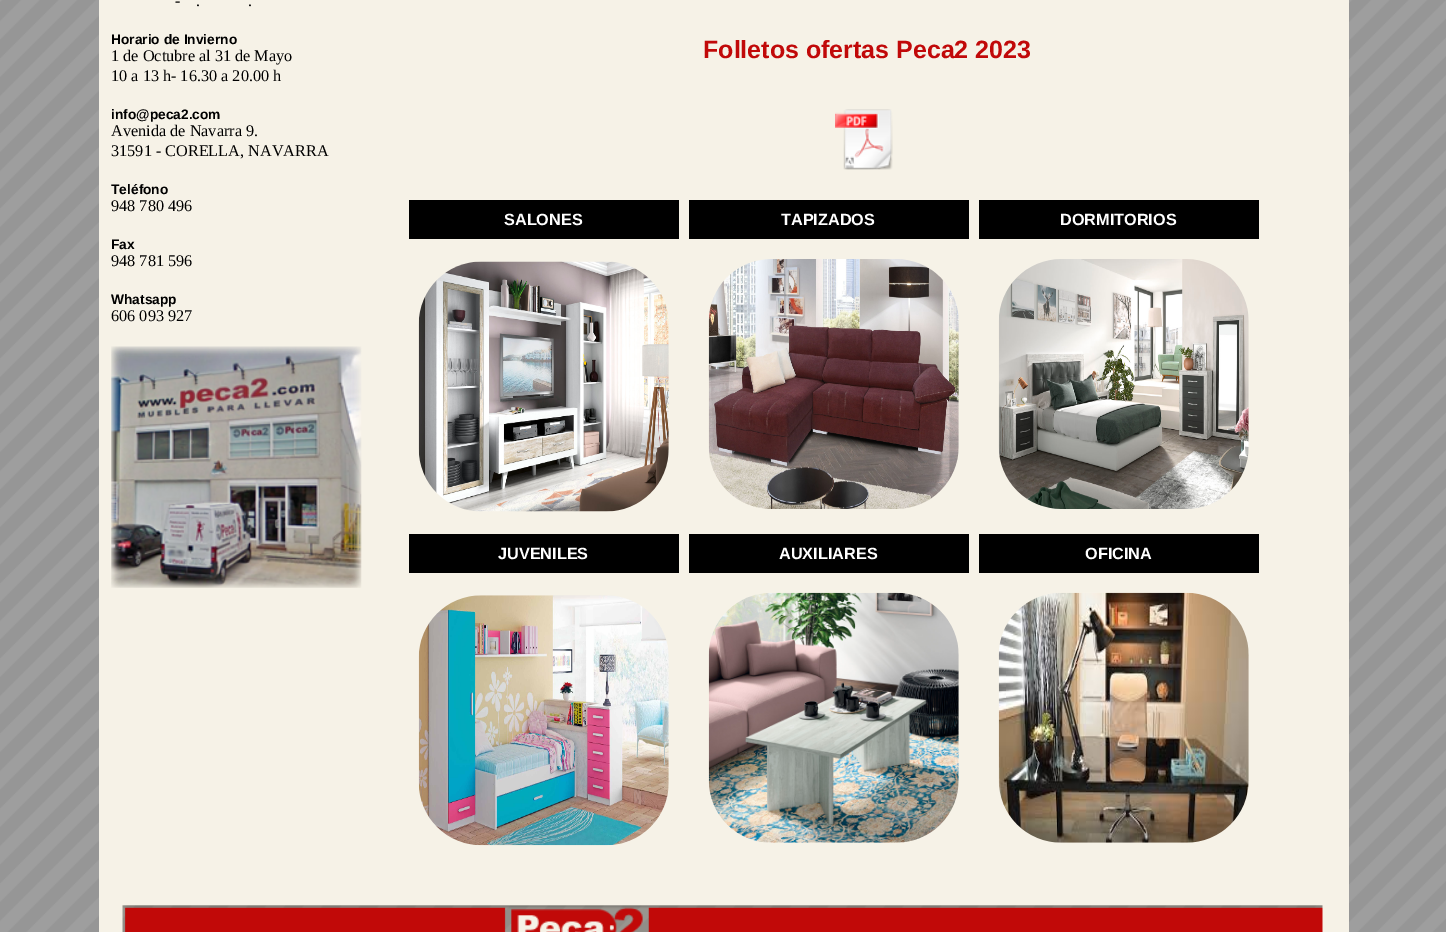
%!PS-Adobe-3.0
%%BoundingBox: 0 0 1446 932
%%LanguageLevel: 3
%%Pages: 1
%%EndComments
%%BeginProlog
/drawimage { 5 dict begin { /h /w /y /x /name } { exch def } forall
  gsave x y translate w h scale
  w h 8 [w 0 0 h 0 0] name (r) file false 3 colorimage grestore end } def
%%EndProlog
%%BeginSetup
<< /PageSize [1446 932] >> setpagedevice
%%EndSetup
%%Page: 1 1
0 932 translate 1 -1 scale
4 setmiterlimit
1 setgray
0 0 1446 932 rectfill
(images/1.raw) 0 0 1446 932 drawimage
0.965 0.949 0.906 setrgbcolor
99 0 1250 932 rectfill
(images/2.raw) 111 346 251 242 drawimage
(images/3.raw) 835 109 58 61 drawimage
0 setgray
409 200 270 39 rectfill
689 200 280 39 rectfill
979 200 280 39 rectfill
(images/4.raw) 418 261 251 251 drawimage
(images/5.raw) 708 259 251 250 drawimage
(images/6.raw) 998 259 251 250 drawimage
409 534 270 39 rectfill
689 534 280 39 rectfill
979 534 280 39 rectfill
(images/7.raw) 418 595 251 251 drawimage
(images/8.raw) 708 592 251 251 drawimage
(images/9.raw) 998 592 251 251 drawimage
(images/10.raw) 122 905 1201 27 drawimage
/LiberationSerif-Regular [16.25 0 0 -16.25 0 0] selectfont
175 6 moveto (-) show
196 6 moveto (.) show
248 6 moveto (.) show
/LiberationSans-Bold [13.75 0 0 -13.75 0 0] selectfont
111 44 moveto (Horario de Invierno) show
/LiberationSerif-Regular [16.25 0 0 -16.25 0 0] selectfont
111 61 moveto (1 de Octubre al 31 de Mayo) show
111 81 moveto (10 a 13 h- 16.30 a 20.00 h) show
/LiberationSans-Bold [13.75 0 0 -13.75 0 0] selectfont
111 119 moveto (info@peca2.com) show
/LiberationSerif-Regular [16.25 0 0 -16.25 0 0] selectfont
111 136 moveto (Avenida de Navarra 9.) show
111 156 moveto (31591 - CORELLA, NAVARRA) show
/LiberationSans-Bold [13.75 0 0 -13.75 0 0] selectfont
111 194 moveto (Teléfono) show
/LiberationSerif-Regular [16.25 0 0 -16.25 0 0] selectfont
111 211 moveto (948 780 496) show
/LiberationSans-Bold [13.75 0 0 -13.75 0 0] selectfont
111 249 moveto (Fax) show
/LiberationSerif-Regular [16.25 0 0 -16.25 0 0] selectfont
111 266 moveto (948 781 596) show
/LiberationSans-Bold [13.75 0 0 -13.75 0 0] selectfont
111 304 moveto (Whatsapp) show
/LiberationSerif-Regular [16.25 0 0 -16.25 0 0] selectfont
111 321 moveto (606 093 927) show
/LiberationSans-Bold [25 0 0 -25 0 0] selectfont
0.757 0.035 0.035 setrgbcolor
703 58 moveto (Folletos ofertas Peca2 2023) show
/LiberationSans-Bold [16.25 0 0 -16.25 0 0] selectfont
1 setgray
504 225 moveto (SALONES) show
781 225 moveto (TAPIZADOS) show
1060 225 moveto (DORMITORIOS) show
498 559 moveto (JUVENILES) show
779 559 moveto (AUXILIARES) show
1085 559 moveto (OFICINA) show
showpage
%%EOF
